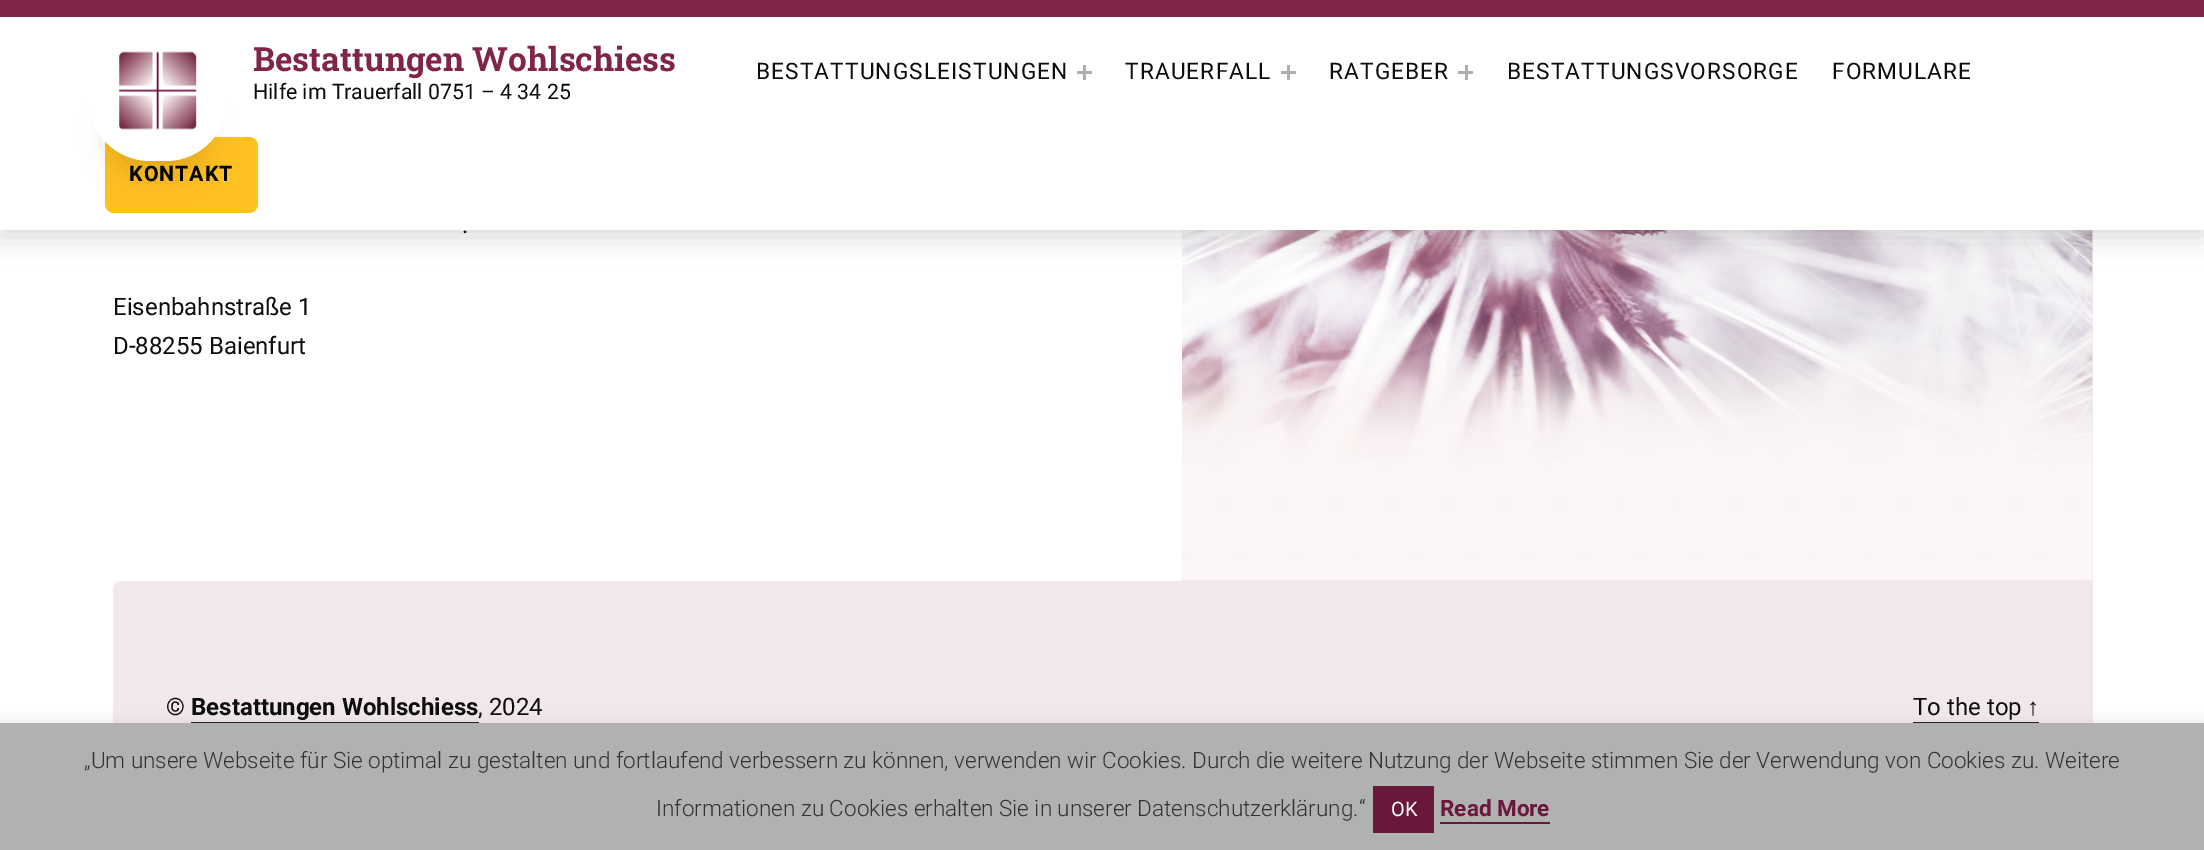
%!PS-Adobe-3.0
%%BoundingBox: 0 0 2204 850
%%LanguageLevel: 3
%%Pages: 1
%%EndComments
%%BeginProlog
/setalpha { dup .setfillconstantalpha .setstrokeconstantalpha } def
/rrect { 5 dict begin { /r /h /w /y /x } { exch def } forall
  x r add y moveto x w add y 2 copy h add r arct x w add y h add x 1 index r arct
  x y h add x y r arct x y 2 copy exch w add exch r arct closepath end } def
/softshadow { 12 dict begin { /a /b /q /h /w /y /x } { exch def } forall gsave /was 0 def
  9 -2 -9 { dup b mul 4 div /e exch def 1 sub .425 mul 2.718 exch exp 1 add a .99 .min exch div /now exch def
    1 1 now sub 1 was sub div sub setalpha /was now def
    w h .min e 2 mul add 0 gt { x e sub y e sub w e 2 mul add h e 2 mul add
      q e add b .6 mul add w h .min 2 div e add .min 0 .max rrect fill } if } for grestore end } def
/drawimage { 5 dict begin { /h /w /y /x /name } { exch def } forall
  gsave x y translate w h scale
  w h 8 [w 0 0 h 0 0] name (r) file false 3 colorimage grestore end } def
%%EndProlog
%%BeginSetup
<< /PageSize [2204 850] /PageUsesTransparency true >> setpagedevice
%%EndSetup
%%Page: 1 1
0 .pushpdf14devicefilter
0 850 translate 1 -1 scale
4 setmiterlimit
1 1 0.992 setrgbcolor
0 0 2204 850 rectfill
0.949 0.91 0.922 setrgbcolor
1182 230 911 351 rectfill
(images/2.raw) 1182 230 911 350 drawimage
0 setgray
0 6 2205 230 0 13.5 0.15 softshadow
1 1 0.992 setrgbcolor
0 17 2204 213 rectfill
0.506 0.141 0.286 setrgbcolor
0 0 2204 17 rectfill
1 0.753 0.133 setrgbcolor
105 137 153 76 9 rrect fill
0 setgray
108 93 99 81 40.5 13.5 0.12 softshadow
1 1 0.992 setrgbcolor
89 39 138 122 61 rrect fill
newpath 149 39 moveto 166 39 lineto 199 39 226 66 226 100 curveto 226 133 199 160 166 160 curveto 149 160 lineto 116 160 88 133 88 100 curveto 88 66 116 39 149 39 curveto closepath 149 39 moveto 166 39 lineto 190 39 210 66 210 100 curveto 210 124 190 144 166 144 curveto 149 144 lineto 125 144 105 124 105 100 curveto 105 66 125 39 149 39 curveto closepath eofill
(images/1.raw) 119 51 78 79 drawimage
0.686 0.686 0.682 setrgbcolor
1077 71 15 3 rectfill
1083 65 3 15 rectfill
1281 71 15 3 rectfill
1287 65 3 15 rectfill
1458 71 15 3 rectfill
1465 65 3 15 rectfill
0.949 0.91 0.922 setrgbcolor
newpath 122 581 moveto 2093 581 lineto 2093 834 lineto 113 834 lineto 113 590 lineto 113 585 117 581 122 581 curveto closepath fill
0.051 setgray
191 722 288 1 rectfill
1913 722 126 1 rectfill
0.675 0.671 0.671 setrgbcolor
0 722 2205 127 0 7.5 0.3 softshadow
0.694 setgray
0 723 2204 127 rectfill
0.412 0.09 0.231 setrgbcolor
1373 786 61 47 rectfill
1440 822 110 2 rectfill
/RobotoSlab-Bold [33.3 0 0 -33.3 0 0] selectfont
0.506 0.141 0.286 setrgbcolor
253 71 moveto (Bestattungen Wohlschiess) show
/Roboto-Regular [21.3 0 0 -21.3 0 0] selectfont
0.051 setgray
253 99 moveto (Hilfe im Trauerfall 0751 – 4 34 25) show
/Roboto-Regular [22.7 0 0 -22.7 0 0] selectfont
756 79 moveto 1.1 0 (BESTATTUNGSLEISTUNGEN) ashow
1125 79 moveto 1.1 0 (TRAUERFALL) ashow
1329 79 moveto 1.1 0 (RATGEBER) ashow
1507 79 moveto 1.1 0 (BESTATTUNGSVORSORGE) ashow
1832 79 moveto 1.1 0 (FORMULARE) ashow
/Roboto-Bold [21.3 0 0 -21.3 0 0] selectfont
0 setgray
129 181 moveto 1 0 (KONTAKT) ashow
/Roboto-Regular [24 0 0 -24 0 0] selectfont
0.051 setgray
462 233 moveto (.) show
113 315 moveto (Eisenbahnstraße 1) show
113 354 moveto (D-88255 Baienfurt) show
166 715 moveto (©) show
/Roboto-Bold [24 0 0 -24 0 0] selectfont
191 715 moveto (Bestattungen Wohlschiess) show
/Roboto-Regular [24 0 0 -24 0 0] selectfont
478 715 moveto (, 2024) show
1913 715 moveto (To the top) show
/LiberationSans-Regular [24 0 0 -24 0 0] selectfont
2027 715 moveto (↑) show
/Roboto-Light [22.5 0 0 -22.5 0 0] selectfont
0.2 setgray
84 768 moveto („Um unsere Webseite für Sie optimal zu gestalten und fortlaufend verbessern zu können, verwenden wir Cookies. Durch die weitere Nutzung der Webseite stimmen Sie der Verwendung von Cookies zu. Weitere) show
656 816 moveto (Informationen zu Cookies erhalten Sie in unserer Datenschutzerklärung.“) show
/Roboto-Regular [20 0 0 -20 0 0] selectfont
1 setgray
1391 816 moveto (OK) show
/Roboto-Bold [22.5 0 0 -22.5 0 0] selectfont
0.412 0.09 0.231 setrgbcolor
1440 816 moveto (Read More) show
.poppdf14devicefilter showpage
%%EOF
